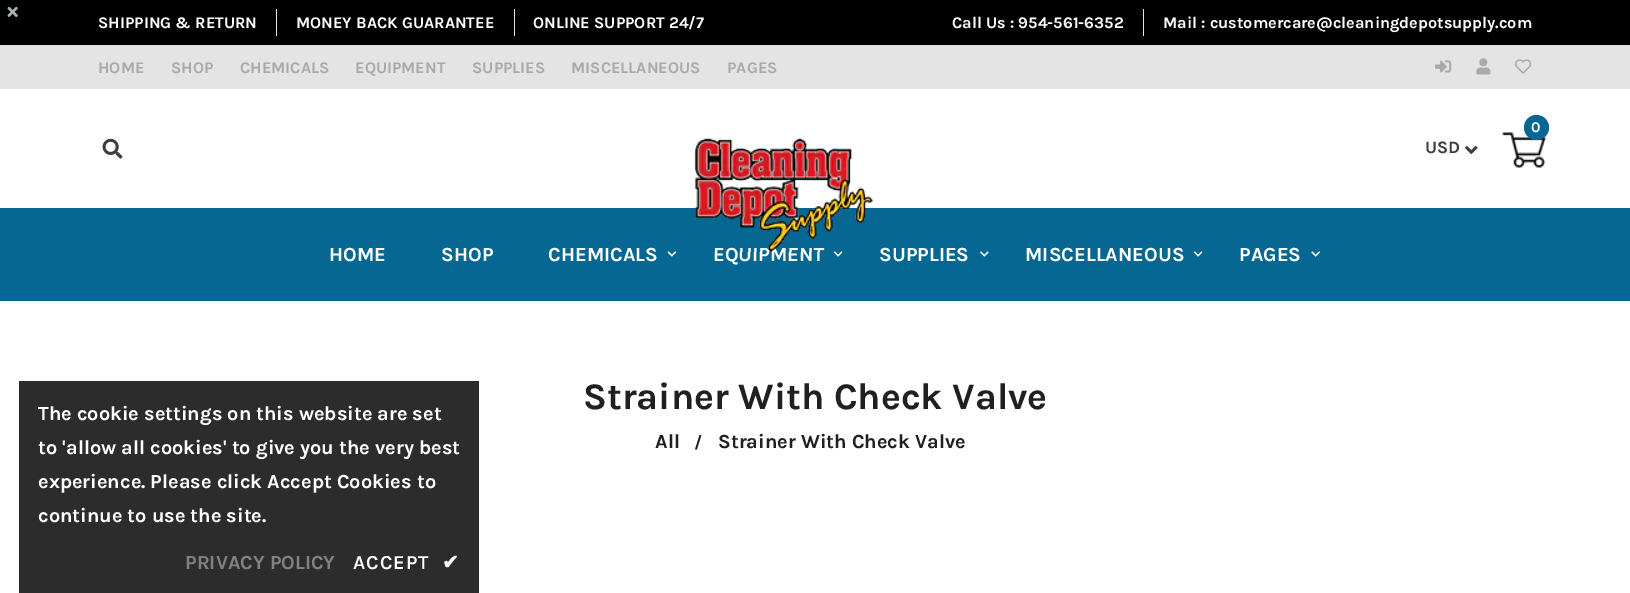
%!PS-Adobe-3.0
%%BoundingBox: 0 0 1630 593
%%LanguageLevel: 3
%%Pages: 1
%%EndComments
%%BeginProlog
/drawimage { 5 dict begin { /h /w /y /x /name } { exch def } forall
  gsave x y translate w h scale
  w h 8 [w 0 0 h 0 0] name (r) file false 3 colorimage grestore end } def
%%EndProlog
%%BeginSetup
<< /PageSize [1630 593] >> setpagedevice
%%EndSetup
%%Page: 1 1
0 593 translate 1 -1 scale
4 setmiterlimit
1 setgray
0 0 1630 593 rectfill
0 setgray
0 0 1630 45 rectfill
(images/1.raw) 7 6 11 11 drawimage
0.894 setgray
276 9 1 27 rectfill
514 9 1 27 rectfill
1143 9 1 27 rectfill
0 45 1630 44 rectfill
(images/2.raw) 1435 60 17 13 drawimage
(images/3.raw) 1476 58 15 17 drawimage
(images/4.raw) 1515 59 17 15 drawimage
(images/5.raw) 102 138 21 21 drawimage
(images/7.raw) 1502 132 45 36 drawimage
0.02 0.404 0.573 setrgbcolor
newpath 1536.5 127.5 12.5 0 360 arc closepath fill
(images/8.raw) 1465 146 13 8 drawimage
0 208 1630 93 rectfill
(images/9.raw) 667 251 10 6 drawimage
(images/10.raw) 833 251 10 6 drawimage
(images/11.raw) 980 251 9 6 drawimage
(images/10.raw) 1193 251 10 6 drawimage
(images/12.raw) 1311 251 9 6 drawimage
0.173 setgray
19 381 460 212 rectfill
/Karla-Bold [16.25 0 0 -16.25 0 0] selectfont
1 setgray
98 28 moveto (SHIPPING & RETURN) show
296 28 moveto (MONEY BACK GUARANTEE) show
533 28 moveto (ONLINE SUPPORT 24/7) show
952 28 moveto (Call Us : 954-561-6352) show
1163 28 moveto (Mail : customercare@cleaningdepotsupply.com) show
0.667 setgray
98 73 moveto (HOME) show
171 73 moveto (SHOP) show
240 73 moveto (CHEMICALS) show
355 73 moveto (EQUIPMENT) show
472 73 moveto (SUPPLIES) show
571 73 moveto (MISCELLANEOUS) show
727 73 moveto (PAGES) show
/Karla-Bold [15 0 0 -15 0 0] selectfont
1 setgray
1531 132 moveto (0) show
/Karla-Bold [17.5 0 0 -17.5 0 0] selectfont
0.255 0.239 0.235 setrgbcolor
1425 153 moveto (USD) show
/Karla-Bold [20 0 0 -20 0 0] selectfont
1 setgray
329 261 moveto (HOME) show
441 261 moveto (SHOP) show
548 261 moveto (CHEMICALS) show
713 261 moveto (EQUIPMENT) show
(images/6.raw) 694 138 179 114 drawimage
879 261 moveto (SUPPLIES) show
1025 261 moveto (MISCELLANEOUS) show
1239 261 moveto (PAGES) show
38 420 moveto (The cookie settings on this website are set) show
38 454 moveto (to 'allow all cookies' to give you the very best) show
38 488 moveto (experience. Please click Accept Cookies to) show
38 522 moveto (continue to use the site.) show
0.506 setgray
185 569 moveto (PRIVACY POLICY) show
/Karla-SemiBold [20 0 0 -20 0 0] selectfont
1 setgray
353 569 moveto 1 0 (ACCEPT) ashow
/DejaVuSans-Bold [20 0 0 -20 0 0] selectfont
442 569 moveto 1 0 (✔) ashow
/Karla-Bold [37.5 0 0 -37.5 0 0] selectfont
0.137 0.122 0.118 setrgbcolor
583 409 moveto (Strainer With Check Valve) show
/Karla-Bold [20 0 0 -20 0 0] selectfont
655 448 moveto (All) show
/Karla-Bold [17.5 0 0 -17.5 0 0] selectfont
694 448 moveto (/) show
/Karla-Bold [20 0 0 -20 0 0] selectfont
718 448 moveto (Strainer With Check Valve) show
showpage
%%EOF
